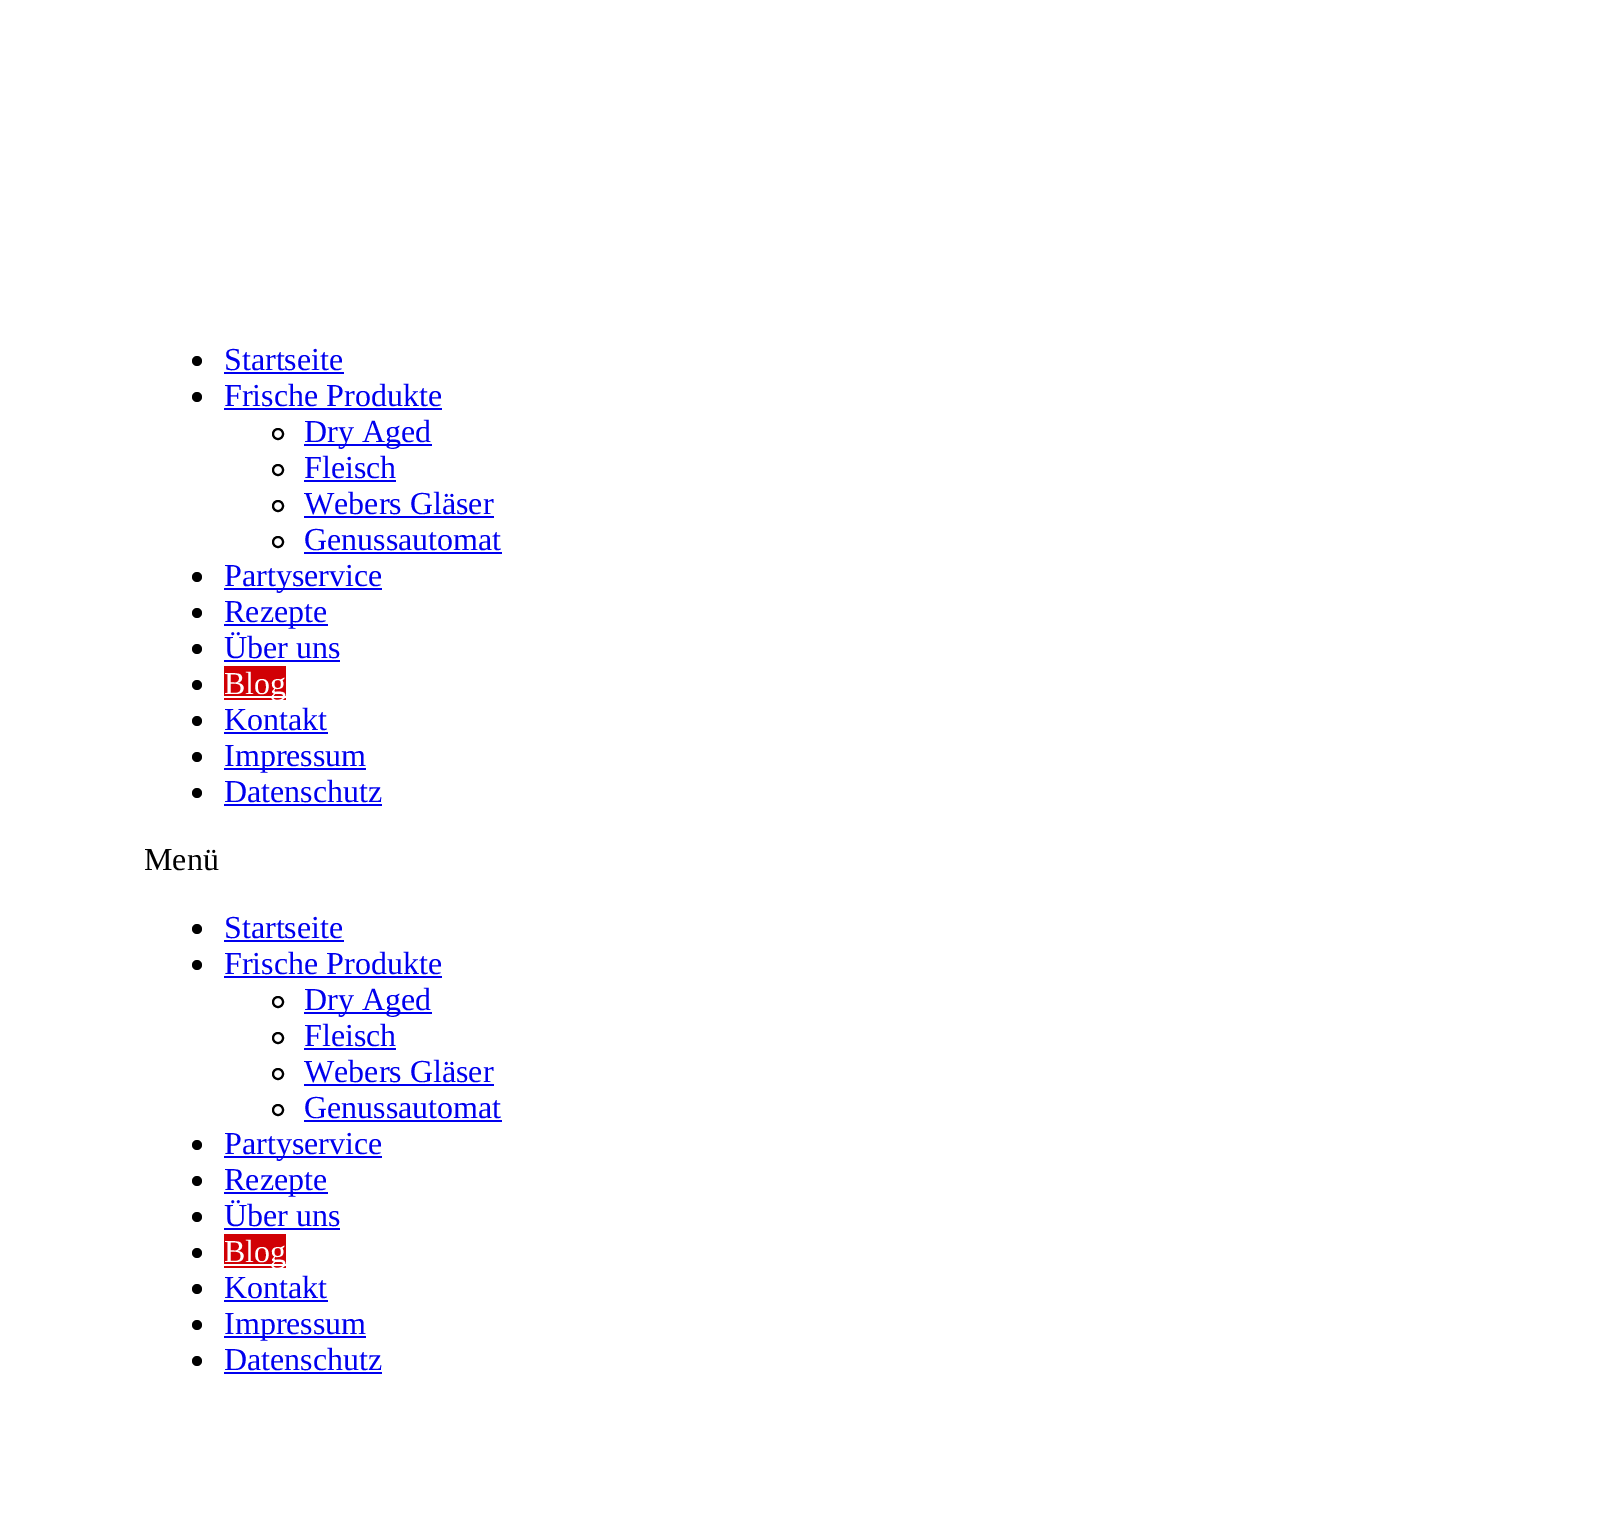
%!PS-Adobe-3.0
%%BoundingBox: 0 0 1620 1532
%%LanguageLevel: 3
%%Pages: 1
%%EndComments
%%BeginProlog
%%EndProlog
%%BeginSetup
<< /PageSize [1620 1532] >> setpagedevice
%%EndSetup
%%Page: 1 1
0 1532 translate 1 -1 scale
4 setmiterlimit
1 setgray
0 0 1620 1532 rectfill
0 setgray
newpath 197 361 5 0 360 arc closepath fill
0 0 0.933 setrgbcolor
224 372 120 2 rectfill
0 setgray
newpath 197 397 5 0 360 arc closepath fill
0 0 0.933 setrgbcolor
224 408 218 2 rectfill
0 setgray
2 setlinewidth
newpath 278 434 5 0 360 arc closepath stroke
0 0 0.933 setrgbcolor
304 444 128 2 rectfill
0 setgray
newpath 278 470 5 0 360 arc closepath stroke
0 0 0.933 setrgbcolor
304 480 92 2 rectfill
0 setgray
newpath 278 506 5 0 360 arc closepath stroke
0 0 0.933 setrgbcolor
304 516 190 2 rectfill
0 setgray
newpath 278 542 5 0 360 arc closepath stroke
0 0 0.933 setrgbcolor
304 552 198 2 rectfill
0 setgray
newpath 197 577 5 0 360 arc closepath fill
0 0 0.933 setrgbcolor
224 588 158 2 rectfill
0 setgray
newpath 197 613 5 0 360 arc closepath fill
0 0 0.933 setrgbcolor
224 624 104 2 rectfill
0 setgray
newpath 197 649 5 0 360 arc closepath fill
0 0 0.933 setrgbcolor
224 660 116 2 rectfill
0 setgray
newpath 197 685 5 0 360 arc closepath fill
0.82 0 0.02 setrgbcolor
224 666 62 34 rectfill
1 setgray
224 696 62 2 rectfill
0 setgray
newpath 197 721 5 0 360 arc closepath fill
0 0 0.933 setrgbcolor
224 732 104 2 rectfill
0 setgray
newpath 197 757 5 0 360 arc closepath fill
0 0 0.933 setrgbcolor
224 768 142 2 rectfill
0 setgray
newpath 197 793 5 0 360 arc closepath fill
0 0 0.933 setrgbcolor
224 804 158 2 rectfill
0 setgray
newpath 197 929 5 0 360 arc closepath fill
0 0 0.933 setrgbcolor
224 940 120 2 rectfill
0 setgray
newpath 197 965 5 0 360 arc closepath fill
0 0 0.933 setrgbcolor
224 976 218 2 rectfill
0 setgray
newpath 278 1002 5 0 360 arc closepath stroke
0 0 0.933 setrgbcolor
304 1012 128 2 rectfill
0 setgray
newpath 278 1038 5 0 360 arc closepath stroke
0 0 0.933 setrgbcolor
304 1048 92 2 rectfill
0 setgray
newpath 278 1074 5 0 360 arc closepath stroke
0 0 0.933 setrgbcolor
304 1084 190 2 rectfill
0 setgray
newpath 278 1110 5 0 360 arc closepath stroke
0 0 0.933 setrgbcolor
304 1120 198 2 rectfill
0 setgray
newpath 197 1145 5 0 360 arc closepath fill
0 0 0.933 setrgbcolor
224 1156 158 2 rectfill
0 setgray
newpath 197 1181 5 0 360 arc closepath fill
0 0 0.933 setrgbcolor
224 1192 104 2 rectfill
0 setgray
newpath 197 1217 5 0 360 arc closepath fill
0 0 0.933 setrgbcolor
224 1228 116 2 rectfill
0 setgray
newpath 197 1253 5 0 360 arc closepath fill
0.82 0 0.02 setrgbcolor
224 1234 62 34 rectfill
1 setgray
224 1264 62 2 rectfill
0 setgray
newpath 197 1289 5 0 360 arc closepath fill
0 0 0.933 setrgbcolor
224 1300 104 2 rectfill
0 setgray
newpath 197 1325 5 0 360 arc closepath fill
0 0 0.933 setrgbcolor
224 1336 142 2 rectfill
0 setgray
newpath 197 1361 5 0 360 arc closepath fill
0 0 0.933 setrgbcolor
224 1372 158 2 rectfill
/LiberationSerif-Regular [32 0 0 -32 0 0] selectfont
224 370 moveto (Startseite) show
224 406 moveto (Frische Produkte) show
304 442 moveto (Dry Aged) show
304 478 moveto (Fleisch) show
304 514 moveto (Webers Gläser) show
304 550 moveto (Genussautomat) show
224 586 moveto (Partyservice) show
224 622 moveto (Rezepte) show
224 658 moveto (Über uns) show
1 setgray
224 694 moveto (Blog) show
0 0 0.933 setrgbcolor
224 730 moveto (Kontakt) show
224 766 moveto (Impressum) show
224 802 moveto (Datenschutz) show
0 setgray
144 870 moveto (Menü) show
0 0 0.933 setrgbcolor
224 938 moveto (Startseite) show
224 974 moveto (Frische Produkte) show
304 1010 moveto (Dry Aged) show
304 1046 moveto (Fleisch) show
304 1082 moveto (Webers Gläser) show
304 1118 moveto (Genussautomat) show
224 1154 moveto (Partyservice) show
224 1190 moveto (Rezepte) show
224 1226 moveto (Über uns) show
1 setgray
224 1262 moveto (Blog) show
0 0 0.933 setrgbcolor
224 1298 moveto (Kontakt) show
224 1334 moveto (Impressum) show
224 1370 moveto (Datenschutz) show
showpage
%%EOF
